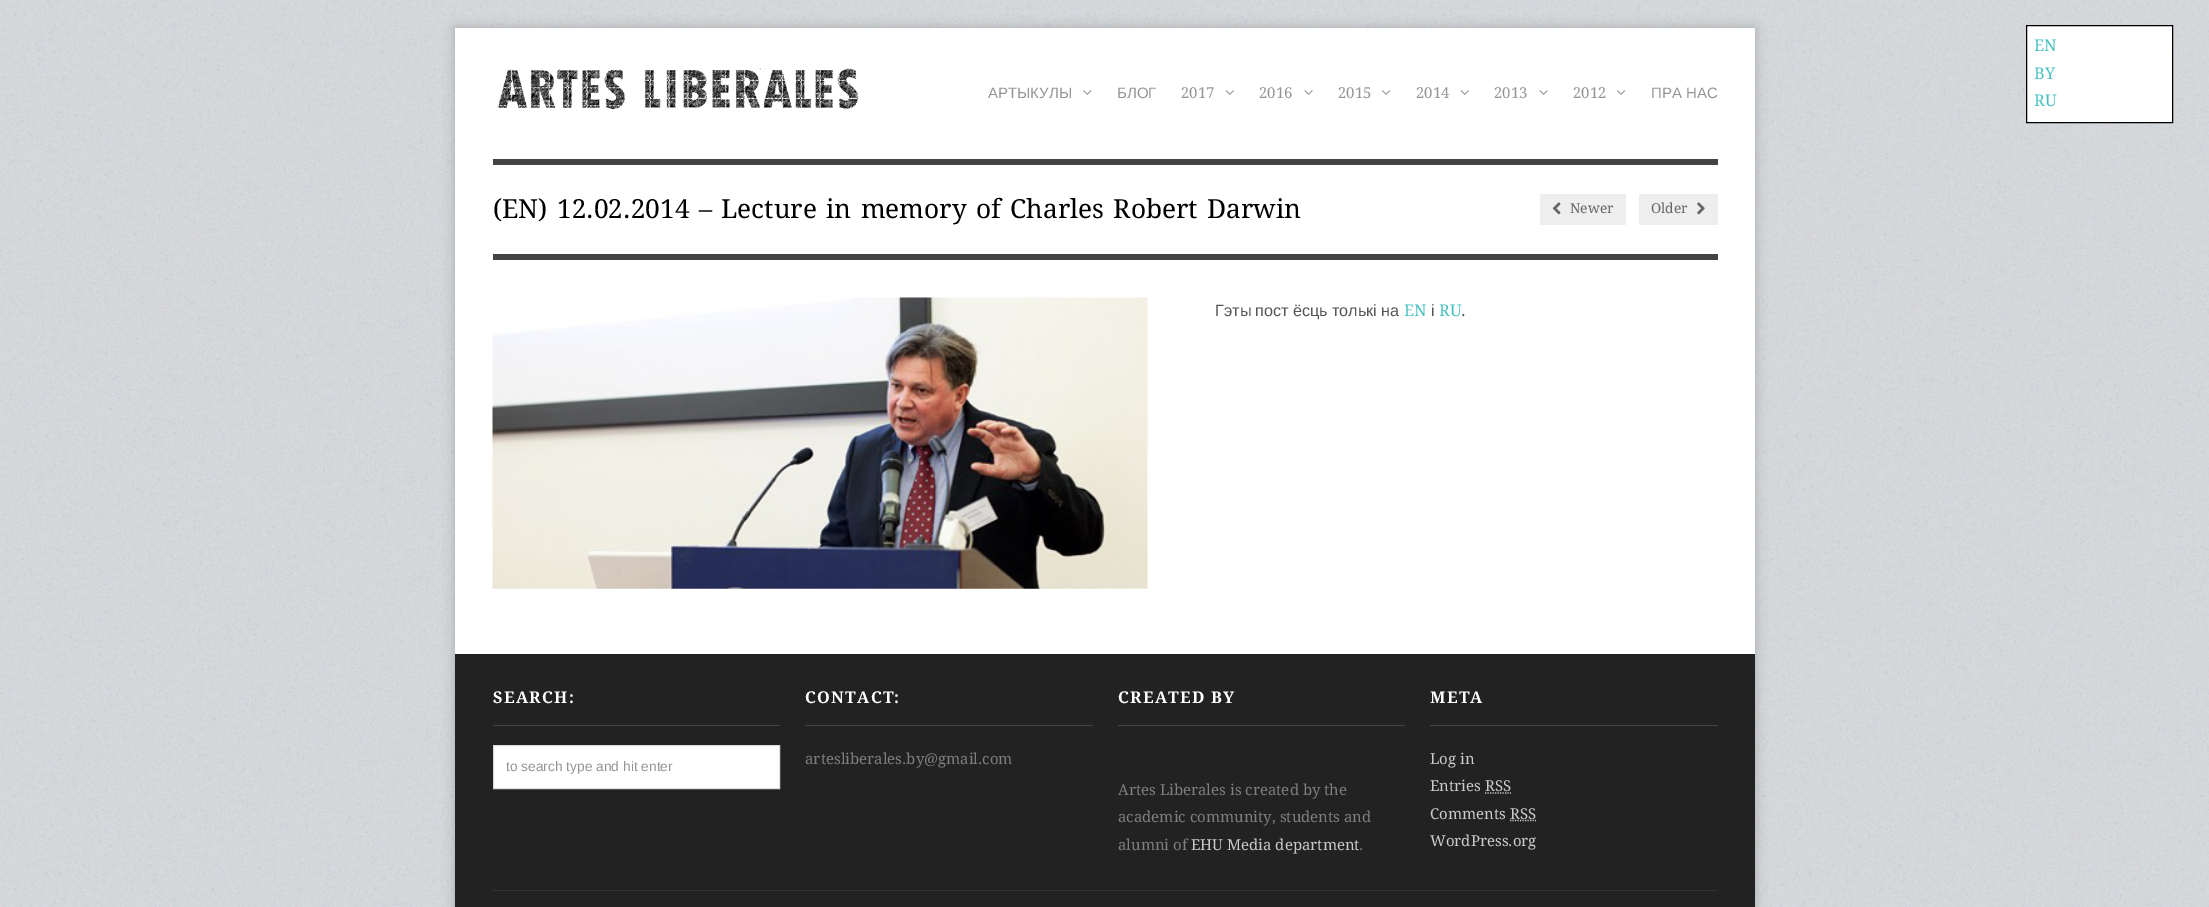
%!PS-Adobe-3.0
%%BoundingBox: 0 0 2209 907
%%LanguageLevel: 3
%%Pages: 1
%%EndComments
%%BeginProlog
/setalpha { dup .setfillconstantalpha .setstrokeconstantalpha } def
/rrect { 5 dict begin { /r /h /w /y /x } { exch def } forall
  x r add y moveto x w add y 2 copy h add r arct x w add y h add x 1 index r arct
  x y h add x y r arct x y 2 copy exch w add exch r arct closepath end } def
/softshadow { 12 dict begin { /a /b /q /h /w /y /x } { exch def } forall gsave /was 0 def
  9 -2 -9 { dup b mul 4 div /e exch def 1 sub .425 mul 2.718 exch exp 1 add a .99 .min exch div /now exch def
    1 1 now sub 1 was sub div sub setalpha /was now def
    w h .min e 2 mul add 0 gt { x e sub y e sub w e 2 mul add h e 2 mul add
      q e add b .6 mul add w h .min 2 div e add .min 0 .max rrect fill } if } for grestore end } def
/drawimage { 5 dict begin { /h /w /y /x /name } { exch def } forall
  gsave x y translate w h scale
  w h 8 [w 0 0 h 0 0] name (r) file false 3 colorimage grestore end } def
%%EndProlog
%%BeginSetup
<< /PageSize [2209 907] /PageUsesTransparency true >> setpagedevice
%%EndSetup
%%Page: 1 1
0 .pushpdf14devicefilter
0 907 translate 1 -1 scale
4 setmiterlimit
1 setgray
0 0 2209 907 rectfill
(images/1.raw) 0 0 2209 907 drawimage
0 setgray
455 28 1300 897 0 6 0.2 softshadow
1 setgray
455 28 1300 626 rectfill
0.267 setgray
493 159 1225 6 rectfill
(images/2.raw) 497 68 362 42 drawimage
(images/3.raw) 1083 90 9 5 drawimage
(images/4.raw) 1225 90 9 5 drawimage
(images/5.raw) 1304 90 9 5 drawimage
(images/6.raw) 1382 90 9 5 drawimage
(images/4.raw) 1460 90 9 5 drawimage
(images/5.raw) 1539 90 9 5 drawimage
(images/6.raw) 1617 90 9 5 drawimage
1 setgray
newpath 2026.5 25.5 moveto 2172.5 25.5 lineto 2172.5 122.5 lineto 2026.5 122.5 lineto closepath gsave fill grestore
0 setgray
stroke
0.267 setgray
493 254 1225 6 rectfill
0.933 setgray
1540 194 86 31 rectfill
(images/7.raw) 1552 202 9 13 drawimage
1639 194 79 31 rectfill
(images/8.raw) 1697 202 8 13 drawimage
(images/9.raw) 492 297 656 292 drawimage
0.133 setgray
455 654 1300 253 rectfill
0.267 setgray
493 725 287 1 rectfill
1 setgray
newpath 493.5 745.5 moveto 779.5 745.5 lineto 779.5 788.5 lineto 493.5 788.5 lineto closepath gsave fill grestore
0.867 setgray
stroke
0.267 setgray
805 725 288 1 rectfill
1118 725 287 1 rectfill
1430 725 288 1 rectfill
0.8 setgray
1.2 setlinewidth
[1.25 1.25] 0 setdash
newpath 1485 793 moveto 1511 793 lineto stroke
newpath 1510 820.5 moveto 1536 820.5 lineto stroke
0.2 setgray
493 890 1225 1 rectfill
/LiberationSans-Regular [15 0 0 -15 0 0] selectfont
0.58 setgray
988 98 moveto (АРТЫКУЛЫ) show
1117 98 moveto (БЛОГ) show
/DroidSerif-Regular [15 0 0 -15 0 0] selectfont
1181 98 moveto (2017) show
1259 98 moveto (2016) show
1338 98 moveto (2015) show
1416 98 moveto (2014) show
1494 98 moveto (2013) show
1573 98 moveto (2012) show
/LiberationSans-Regular [15 0 0 -15 0 0] selectfont
1651 98 moveto (ПРА НАС) show
/DroidSerif-Regular [16.25 0 0 -16.25 0 0] selectfont
0.278 0.753 0.753 setrgbcolor
2034 51 moveto (EN) show
2034 79 moveto (BY) show
2034 106 moveto (RU) show
/DroidSerif-Regular [26.25 0 0 -26.25 0 0] selectfont
0 setgray
493 218 moveto 2.5 0 32 (\(EN\) 12.02.2014 – Lecture in memory of Charles Robert Darwin) widthshow
/DroidSerif-Regular [13.75 0 0 -13.75 0 0] selectfont
0.4 setgray
1570 213 moveto (Newer) show
1651 213 moveto (Older) show
/LiberationSans-Regular [16.25 0 0 -16.25 0 0] selectfont
0.333 setgray
1215 316 moveto -0.5 0 32 (Гэты пост ёсць толькі на) widthshow
/DroidSerif-Regular [16.25 0 0 -16.25 0 0] selectfont
0.278 0.753 0.753 setrgbcolor
1404 316 moveto (EN) show
/LiberationSans-Regular [16.25 0 0 -16.25 0 0] selectfont
0.333 setgray
1431 316 moveto (і) show
/DroidSerif-Regular [16.25 0 0 -16.25 0 0] selectfont
0.278 0.753 0.753 setrgbcolor
1439 316 moveto (RU) show
0.333 setgray
1461 316 moveto (.) show
/DroidSerif-Bold [16.25 0 0 -16.25 0 0] selectfont
1 setgray
493 703 moveto 1.25 0 (SEARCH:) ashow
/LiberationSans-Regular [13.75 0 0 -13.75 0 0] selectfont
0.58 setgray
506 771 moveto (to search type and hit enter) show
/DroidSerif-Bold [16.25 0 0 -16.25 0 0] selectfont
1 setgray
805 703 moveto 1.25 0 (CONTACT:) ashow
/DroidSerif-Regular [15 0 0 -15 0 0] selectfont
0.498 setgray
805 764 moveto (artesliberales.by@gmail.com) show
/DroidSerif-Bold [16.25 0 0 -16.25 0 0] selectfont
1 setgray
1118 703 moveto 1.25 0 (CREATED BY) ashow
/DroidSerif-Regular [15 0 0 -15 0 0] selectfont
0.498 setgray
1118 795 moveto (Artes Liberales is created by the) show
1118 822 moveto (academic community, students and) show
1118 850 moveto (alumni of) show
0.8 setgray
1191 850 moveto (EHU Media department) show
0.498 setgray
1359 850 moveto (.) show
/DroidSerif-Bold [16.25 0 0 -16.25 0 0] selectfont
1 setgray
1430 703 moveto 1.25 0 (META) ashow
/DroidSerif-Regular [15 0 0 -15 0 0] selectfont
0.8 setgray
1430 764 moveto (Log in) show
1430 791 moveto (Entries RSS) show
1430 819 moveto (Comments) show
1510 819 moveto (RSS) show
1430 846 moveto (WordPress.org) show
.poppdf14devicefilter showpage
%%EOF
